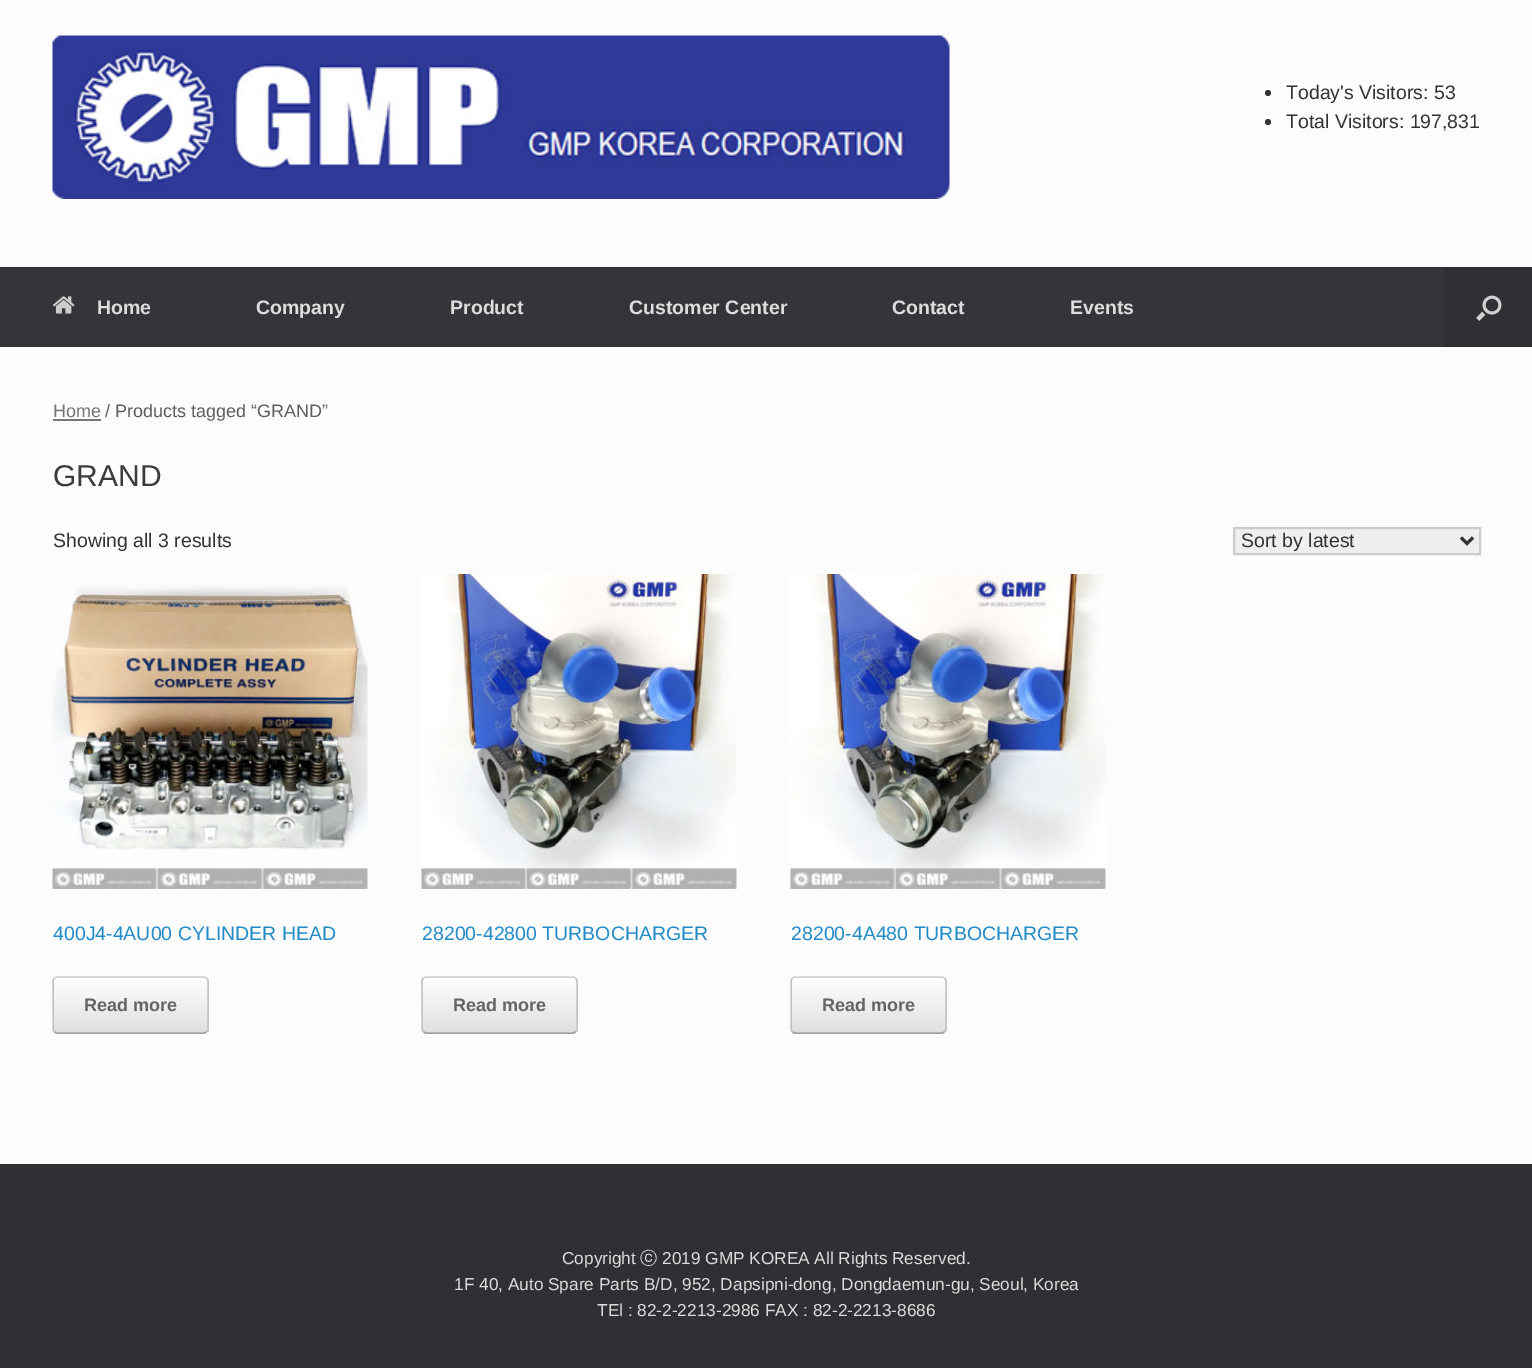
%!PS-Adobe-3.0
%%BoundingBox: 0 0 1532 1368
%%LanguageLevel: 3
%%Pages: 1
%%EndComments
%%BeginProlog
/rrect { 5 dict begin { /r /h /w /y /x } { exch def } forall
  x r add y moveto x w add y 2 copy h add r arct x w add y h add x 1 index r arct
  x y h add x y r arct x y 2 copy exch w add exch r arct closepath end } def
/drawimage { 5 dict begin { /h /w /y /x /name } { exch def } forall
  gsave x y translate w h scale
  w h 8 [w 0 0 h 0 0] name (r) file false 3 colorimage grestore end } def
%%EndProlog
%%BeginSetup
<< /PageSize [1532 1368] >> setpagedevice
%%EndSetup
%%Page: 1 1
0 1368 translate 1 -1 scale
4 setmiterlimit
0.184 0.188 0.2 setrgbcolor
0 0 1532 1368 rectfill
0.988 setgray
0 0 1532 267 rectfill
(images/1.raw) 52 35 898 164 drawimage
0.2 setgray
newpath 1268 93 3 0 360 arc closepath fill
newpath 1268 122 3 0 360 arc closepath fill
0.204 0.208 0.22 setrgbcolor
0 267 1445 80 rectfill
(images/2.raw) 52 296 23 18 drawimage
(images/3.raw) 1476 295 26 26 drawimage
0.988 setgray
0 347 1532 817 rectfill
0.463 setgray
53 419 48 2 rectfill
0.937 setgray
newpath 1234 528 moveto 1480 528 lineto 1480 554 lineto 1234 554 lineto closepath gsave fill grestore
0.8 setgray
2 setlinewidth
stroke
0.2 setgray
3 setlinewidth
newpath 1461 537.5 moveto 1467 543.5 lineto 1473 537.5 lineto stroke
(images/4.raw) 52 585 316 304 drawimage
gsave
53 977 156 57 5 rrect clip newpath
gsave newpath 53 978 moveto 209 978 lineto 209 1032 lineto 53 1032 lineto closepath clip newpath
<< /ShadingType 2 /ColorSpace /DeviceRGB /Coords [54 1032 54 978] /Extend [true true] /Function << /FunctionType 2 /Domain [0 1] /C0 [0.875 0.875 0.875] /C1 [1 1 1] /N 1 >> >> shfill grestore
gsave newpath 53 1032 moveto 209 1032 lineto 209 1034 lineto 53 1034 lineto closepath clip newpath
<< /ShadingType 2 /ColorSpace /DeviceRGB /Coords [54 1086 54 1032] /Extend [true true] /Function << /FunctionType 2 /Domain [0 1] /C0 [0.875 0.875 0.875] /C1 [1 1 1] /N 1 >> >> shfill grestore
grestore
0.824 setgray
1.5 setlinewidth
newpath 54.5 978.5 moveto 55 977.5 56 977 57 977 curveto 204 977 lineto 205 977 206 977.5 206.5 978.5 curveto stroke
0.765 setgray
newpath 206.5 978.5 moveto 207.5 979 208 980 208 981 curveto 208 1029 lineto 208 1030 207.5 1031 206.5 1031.5 curveto stroke
0.624 setgray
newpath 206.5 1031.5 moveto 206 1032.5 205 1033 204 1033 curveto 57 1033 lineto 56 1033 55 1032.5 54.5 1031.5 curveto stroke
0.765 setgray
newpath 54.5 1031.5 moveto 53.5 1031 53 1030 53 1029 curveto 53 981 lineto 53 980 53.5 979 54.5 978.5 curveto stroke
(images/5.raw) 421 574 316 315 drawimage
gsave
422 977 156 57 5 rrect clip newpath
gsave newpath 422 978 moveto 578 978 lineto 578 1032 lineto 422 1032 lineto closepath clip newpath
<< /ShadingType 2 /ColorSpace /DeviceRGB /Coords [423 1032 423 978] /Extend [true true] /Function << /FunctionType 2 /Domain [0 1] /C0 [0.875 0.875 0.875] /C1 [1 1 1] /N 1 >> >> shfill grestore
gsave newpath 422 1032 moveto 578 1032 lineto 578 1034 lineto 422 1034 lineto closepath clip newpath
<< /ShadingType 2 /ColorSpace /DeviceRGB /Coords [423 1086 423 1032] /Extend [true true] /Function << /FunctionType 2 /Domain [0 1] /C0 [0.875 0.875 0.875] /C1 [1 1 1] /N 1 >> >> shfill grestore
grestore
0.824 setgray
newpath 423.5 978.5 moveto 424 977.5 425 977 426 977 curveto 573 977 lineto 574 977 575 977.5 575.5 978.5 curveto stroke
0.765 setgray
newpath 575.5 978.5 moveto 576.5 979 577 980 577 981 curveto 577 1029 lineto 577 1030 576.5 1031 575.5 1031.5 curveto stroke
0.624 setgray
newpath 575.5 1031.5 moveto 575 1032.5 574 1033 573 1033 curveto 426 1033 lineto 425 1033 424 1032.5 423.5 1031.5 curveto stroke
0.765 setgray
newpath 423.5 1031.5 moveto 422.5 1031 422 1030 422 1029 curveto 422 981 lineto 422 980 422.5 979 423.5 978.5 curveto stroke
(images/6.raw) 790 574 316 315 drawimage
gsave
791 977 156 57 5 rrect clip newpath
gsave newpath 791 978 moveto 947 978 lineto 947 1032 lineto 791 1032 lineto closepath clip newpath
<< /ShadingType 2 /ColorSpace /DeviceRGB /Coords [792 1032 792 978] /Extend [true true] /Function << /FunctionType 2 /Domain [0 1] /C0 [0.875 0.875 0.875] /C1 [1 1 1] /N 1 >> >> shfill grestore
gsave newpath 791 1032 moveto 947 1032 lineto 947 1034 lineto 791 1034 lineto closepath clip newpath
<< /ShadingType 2 /ColorSpace /DeviceRGB /Coords [792 1086 792 1032] /Extend [true true] /Function << /FunctionType 2 /Domain [0 1] /C0 [0.875 0.875 0.875] /C1 [1 1 1] /N 1 >> >> shfill grestore
grestore
0.824 setgray
newpath 792.5 978.5 moveto 793 977.5 794 977 795 977 curveto 942 977 lineto 943 977 944 977.5 944.5 978.5 curveto stroke
0.765 setgray
newpath 944.5 978.5 moveto 945.5 979 946 980 946 981 curveto 946 1029 lineto 946 1030 945.5 1031 944.5 1031.5 curveto stroke
0.624 setgray
newpath 944.5 1031.5 moveto 944 1032.5 943 1033 942 1033 curveto 795 1033 lineto 794 1033 793 1032.5 792.5 1031.5 curveto stroke
0.765 setgray
newpath 792.5 1031.5 moveto 791.5 1031 791 1030 791 1029 curveto 791 981 lineto 791 980 791.5 979 792.5 978.5 curveto stroke
/LiberationSans-Regular [19.5 0 0 -19.5 0 0] selectfont
0.2 setgray
1286 99 moveto (Today's Visitors: 53) show
1286 128 moveto (Total Visitors: 197,831) show
/LiberationSans-Bold [19.5 0 0 -19.5 0 0] selectfont
0.867 setgray
97 314 moveto (Home) show
256 314 moveto (Company) show
450 314 moveto (Product) show
629 314 moveto (Customer Center) show
892 314 moveto (Contact) show
1070 314 moveto (Events) show
/LiberationSans-Regular [18 0 0 -18 0 0] selectfont
0.463 setgray
53 417 moveto (Home) show
0.369 setgray
105 417 moveto (/ Products tagged “GRAND”) show
/LiberationSans-Regular [30 0 0 -30 0 0] selectfont
0.231 setgray
53 486 moveto (GRAND) show
/LiberationSans-Regular [19.5 0 0 -19.5 0 0] selectfont
0.2 setgray
53 547 moveto (Showing all 3 results) show
1241 547 moveto (Sort by latest) show
0.141 0.549 0.784 setrgbcolor
53 940 moveto (400J4-4AU00 CYLINDER HEAD) show
/LiberationSans-Bold [18 0 0 -18 0 0] selectfont
0.392 setgray
84 1011 moveto (Read more) show
/LiberationSans-Regular [19.5 0 0 -19.5 0 0] selectfont
0.141 0.549 0.784 setrgbcolor
422 940 moveto (28200-42800 TURBOCHARGER) show
/LiberationSans-Bold [18 0 0 -18 0 0] selectfont
0.392 setgray
453 1011 moveto (Read more) show
/LiberationSans-Regular [19.5 0 0 -19.5 0 0] selectfont
0.141 0.549 0.784 setrgbcolor
791 940 moveto (28200-4A480 TURBOCHARGER) show
/LiberationSans-Bold [18 0 0 -18 0 0] selectfont
0.392 setgray
822 1011 moveto (Read more) show
/LiberationSans-Regular [17.25 0 0 -17.25 0 0] selectfont
0.867 setgray
562 1264 moveto (Copyright) show
/WenQuanYiZenHei-Medium [17.25 0 0 -17.25 0 0] selectfont
640 1264 moveto (ⓒ) show
/LiberationSans-Regular [17.25 0 0 -17.25 0 0] selectfont
662 1264 moveto (2019 GMP KOREA All Rights Reserved.) show
454 1290 moveto (1F 40, Auto Spare Parts B/D, 952, Dapsipni-dong, Dongdaemun-gu, Seoul, Korea) show
597 1316 moveto (TEl : 82-2-2213-2986 FAX : 82-2-2213-8686) show
showpage
%%EOF
